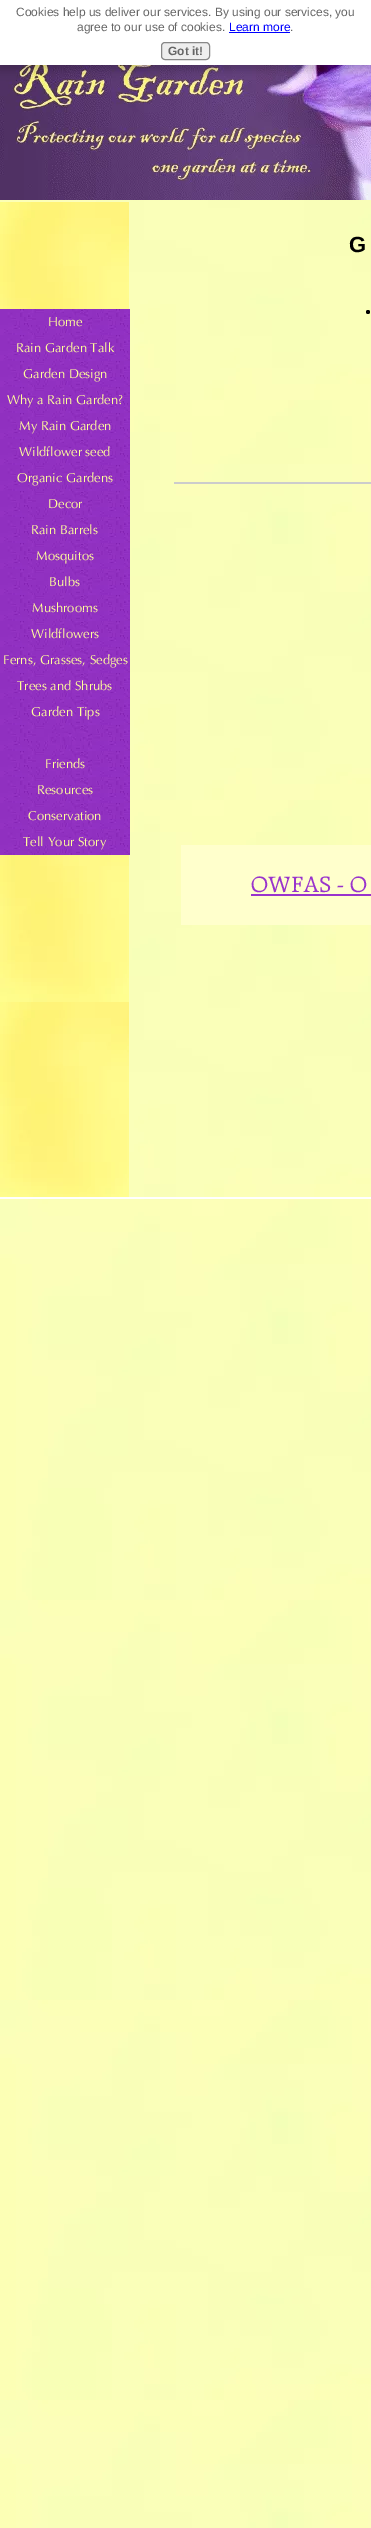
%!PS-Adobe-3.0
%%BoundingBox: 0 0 371 2528
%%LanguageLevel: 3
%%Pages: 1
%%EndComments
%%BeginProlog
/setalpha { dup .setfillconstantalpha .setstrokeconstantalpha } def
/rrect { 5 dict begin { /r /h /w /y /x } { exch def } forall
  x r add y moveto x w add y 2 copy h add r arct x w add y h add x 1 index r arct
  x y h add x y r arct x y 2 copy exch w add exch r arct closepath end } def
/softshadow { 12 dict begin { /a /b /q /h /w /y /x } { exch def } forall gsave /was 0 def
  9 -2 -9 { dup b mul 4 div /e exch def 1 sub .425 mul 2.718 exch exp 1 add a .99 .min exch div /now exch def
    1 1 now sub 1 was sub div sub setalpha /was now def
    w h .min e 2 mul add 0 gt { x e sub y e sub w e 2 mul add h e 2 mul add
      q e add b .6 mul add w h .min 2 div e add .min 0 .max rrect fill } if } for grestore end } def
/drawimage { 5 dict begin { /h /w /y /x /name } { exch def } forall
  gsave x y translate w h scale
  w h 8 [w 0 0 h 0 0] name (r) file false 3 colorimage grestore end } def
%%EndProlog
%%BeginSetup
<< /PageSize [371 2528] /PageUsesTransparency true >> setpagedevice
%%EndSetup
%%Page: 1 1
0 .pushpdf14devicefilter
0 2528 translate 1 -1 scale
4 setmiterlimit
1 setgray
0 0 371 2528 rectfill
(images/1.raw) 0 200 371 2328 drawimage
(images/2.raw) 0 65 371 135 drawimage
0 setgray
-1 3 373 67 0 5 0.2 softshadow
1 setgray
0 0 371 65 rectfill
0 0 1 setrgbcolor
229 32 61 1 rectfill
0.933 setgray
161.5 42.5 48 17 3.5 rrect gsave fill grestore
0.533 setgray
stroke
(images/3.raw) 0 202 129 995 drawimage
(images/4.raw) 0 309 130 26 drawimage
(images/4.raw) 0 335 130 26 drawimage
(images/4.raw) 0 361 130 26 drawimage
(images/4.raw) 0 387 130 26 drawimage
(images/4.raw) 0 413 130 26 drawimage
(images/4.raw) 0 439 130 26 drawimage
(images/4.raw) 0 465 130 26 drawimage
(images/4.raw) 0 491 130 26 drawimage
(images/4.raw) 0 517 130 26 drawimage
(images/4.raw) 0 543 130 26 drawimage
(images/4.raw) 0 569 130 26 drawimage
(images/4.raw) 0 595 130 26 drawimage
(images/4.raw) 0 621 130 26 drawimage
(images/4.raw) 0 647 130 26 drawimage
(images/4.raw) 0 673 130 26 drawimage
(images/4.raw) 0 699 130 26 drawimage
(images/4.raw) 0 725 130 26 drawimage
(images/4.raw) 0 751 130 26 drawimage
(images/4.raw) 0 777 130 26 drawimage
(images/4.raw) 0 803 130 26 drawimage
(images/4.raw) 0 829 130 26 drawimage
0 setgray
newpath 368 312 2 0 360 arc closepath fill
0.8 setgray
174 482 197 2 rectfill
1 1 0.8 setrgbcolor
181 845 190 80 rectfill
0.6 0.2 0.8 setrgbcolor
251 894 120 2 rectfill
1 setgray
0 1197 371 2 rectfill
/LiberationSans-Regular [12 0 0 -12 0 0] selectfont
0.4 setgray
16 16 moveto (Cookies help us deliver our services. By using our services, you) show
77 31 moveto (agree to our use of cookies.) show
0 0 1 setrgbcolor
229 31 moveto (Learn more) show
0.4 setgray
290 31 moveto (.) show
/LiberationSans-Bold [12 0 0 -12 0 0] selectfont
168 55 moveto (Got it!) show
/Optima-Regular [13 0 0 -13 0 0] selectfont
1 1 0.6 setrgbcolor
48 326 moveto (Home) show
16 352 moveto (Rain Garden Talk) show
23 378 moveto (Garden Design) show
7 404 moveto (Why a Rain Garden?) show
19 430 moveto (My Rain Garden) show
19 456 moveto (Wildflower seed) show
17 482 moveto (Organic Gardens) show
48 508 moveto (Decor) show
31 534 moveto (Rain Barrels) show
36 560 moveto (Mosquitos) show
49 586 moveto (Bulbs) show
32 612 moveto (Mushrooms) show
31 638 moveto (Wildflowers) show
3 664 moveto (Ferns, Grasses, Sedges) show
17 690 moveto (Trees and Shrubs) show
31 716 moveto (Garden Tips) show
45 768 moveto (Friends) show
37 794 moveto (Resources) show
28 820 moveto (Conservation) show
23 846 moveto (Tell Your Story) show
/LiberationSans-Bold [22 0 0 -22 0 0] selectfont
0 setgray
349 252 moveto (G) show
/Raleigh-Regular [24 0 0 -24 0 0] selectfont
0.6 0.2 0.8 setrgbcolor
251 892 moveto (OWFAS - O) show
.poppdf14devicefilter showpage
%%EOF
